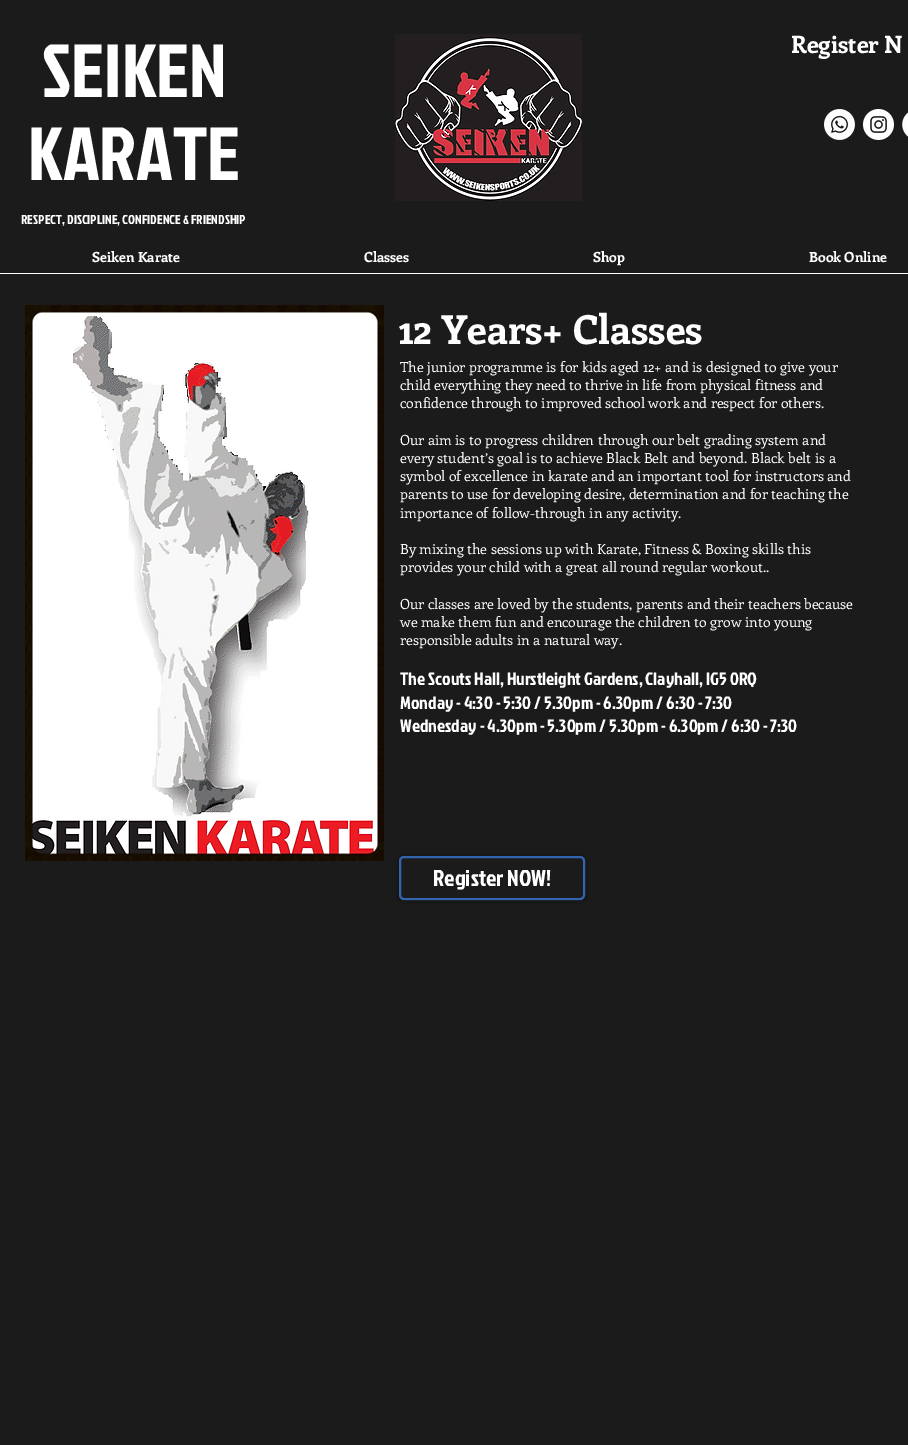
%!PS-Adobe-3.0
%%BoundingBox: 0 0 908 1445
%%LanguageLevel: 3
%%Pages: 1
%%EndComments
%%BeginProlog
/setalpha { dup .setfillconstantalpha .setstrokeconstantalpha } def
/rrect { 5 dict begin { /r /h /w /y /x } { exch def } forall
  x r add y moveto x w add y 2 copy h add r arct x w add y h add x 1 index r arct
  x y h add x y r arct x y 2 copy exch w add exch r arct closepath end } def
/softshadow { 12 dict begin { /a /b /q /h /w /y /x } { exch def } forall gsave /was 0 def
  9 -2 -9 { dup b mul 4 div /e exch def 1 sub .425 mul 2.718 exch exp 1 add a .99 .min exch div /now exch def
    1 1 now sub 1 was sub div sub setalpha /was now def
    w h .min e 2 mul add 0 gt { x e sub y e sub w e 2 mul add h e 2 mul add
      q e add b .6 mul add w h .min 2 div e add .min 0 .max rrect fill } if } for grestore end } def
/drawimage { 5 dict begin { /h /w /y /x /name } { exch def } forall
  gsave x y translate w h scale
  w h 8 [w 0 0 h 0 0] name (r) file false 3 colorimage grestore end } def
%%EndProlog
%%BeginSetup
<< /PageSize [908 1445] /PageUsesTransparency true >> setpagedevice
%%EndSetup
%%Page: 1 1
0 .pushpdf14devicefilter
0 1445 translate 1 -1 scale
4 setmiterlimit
0.106 setgray
0 0 908 1445 rectfill
(images/1.raw) 395 34 187 167 drawimage
(images/2.raw) 824 109 31 31 drawimage
(images/3.raw) 863 109 31 31 drawimage
(images/4.raw) 902 112 6 25 drawimage
1 setgray
0 273 908 1 rectfill
(images/5.raw) 25 305 359 556 drawimage
0 setgray
399 857 186 44 5 2 0.6 softshadow
0.106 setgray
400 857 184 42 4 rrect gsave fill grestore
0.2 0.392 0.686 setrgbcolor
2 setlinewidth
stroke
0.5 setalpha
0.106 setgray
401 900 182 2 rectfill
/JockeyOne-Regular [75 0 0 -75 0 0] selectfont
1 setalpha
1 setgray
42 97 moveto (SEIKEN) show
28 180 moveto (KARATE) show
/Enriqueta-Bold [24 0 0 -24 0 0] selectfont
791 53 moveto (Register N) show
/JockeyOne-Regular [13 0 0 -13 0 0] selectfont
21 224 moveto (RESPECT, DISCIPLINE, CONFIDENCE & FRIENDSHIP) show
/Enriqueta-Bold [14 0 0 -14 0 0] selectfont
92 262 moveto (Seiken Karate) show
364 262 moveto (Classes) show
593 262 moveto (Shop) show
809 262 moveto (Book Online) show
/Enriqueta-Bold [40 0 0 -40 0 0] selectfont
399 344 moveto (12 Years+ Classes) show
/Enriqueta-Regular [14 0 0 -14 0 0] selectfont
400 372 moveto (The junior programme is for kids aged 12+ and is designed to give your) show
400 390 moveto (child everything they need to thrive in life from physical fitness and) show
400 408 moveto (confidence through to improved school work and respect for others.) show
400 445 moveto (Our aim is to progress children through our belt grading system and) show
400 463 moveto (every student’s goal is to achieve Black Belt and beyond. Black belt is a) show
400 481 moveto (symbol of excellence in karate and an important tool for instructors and) show
400 499 moveto (parents to use for developing desire, determination and for teaching the) show
400 518 moveto (importance of follow-through in any activity.) show
400 554 moveto (By mixing the sessions up with Karate, Fitness & Boxing skills this) show
400 572 moveto (provides your child with a great all round regular workout..) show
400 609 moveto (Our classes are loved by the students, parents and their teachers because) show
400 627 moveto (we make them fun and encourage the children to grow into young) show
400 645 moveto (responsible adults in a natural way.) show
/JockeyOne-Regular [18 0 0 -18 0 0] selectfont
400 685 moveto (The Scouts Hall, Hurstleight Gardens, Clayhall, IG5 0RQ) show
400 709 moveto (Monday - 4:30 - 5:30 / 5.30pm - 6.30pm / 6:30 - 7:30) show
400 732 moveto (Wednesday - 4.30pm - 5.30pm / 5.30pm - 6.30pm / 6:30 - 7:30) show
/JockeyOne-Regular [23 0 0 -23 0 0] selectfont
433 886 moveto (Register NOW!) show
.poppdf14devicefilter showpage
%%EOF
